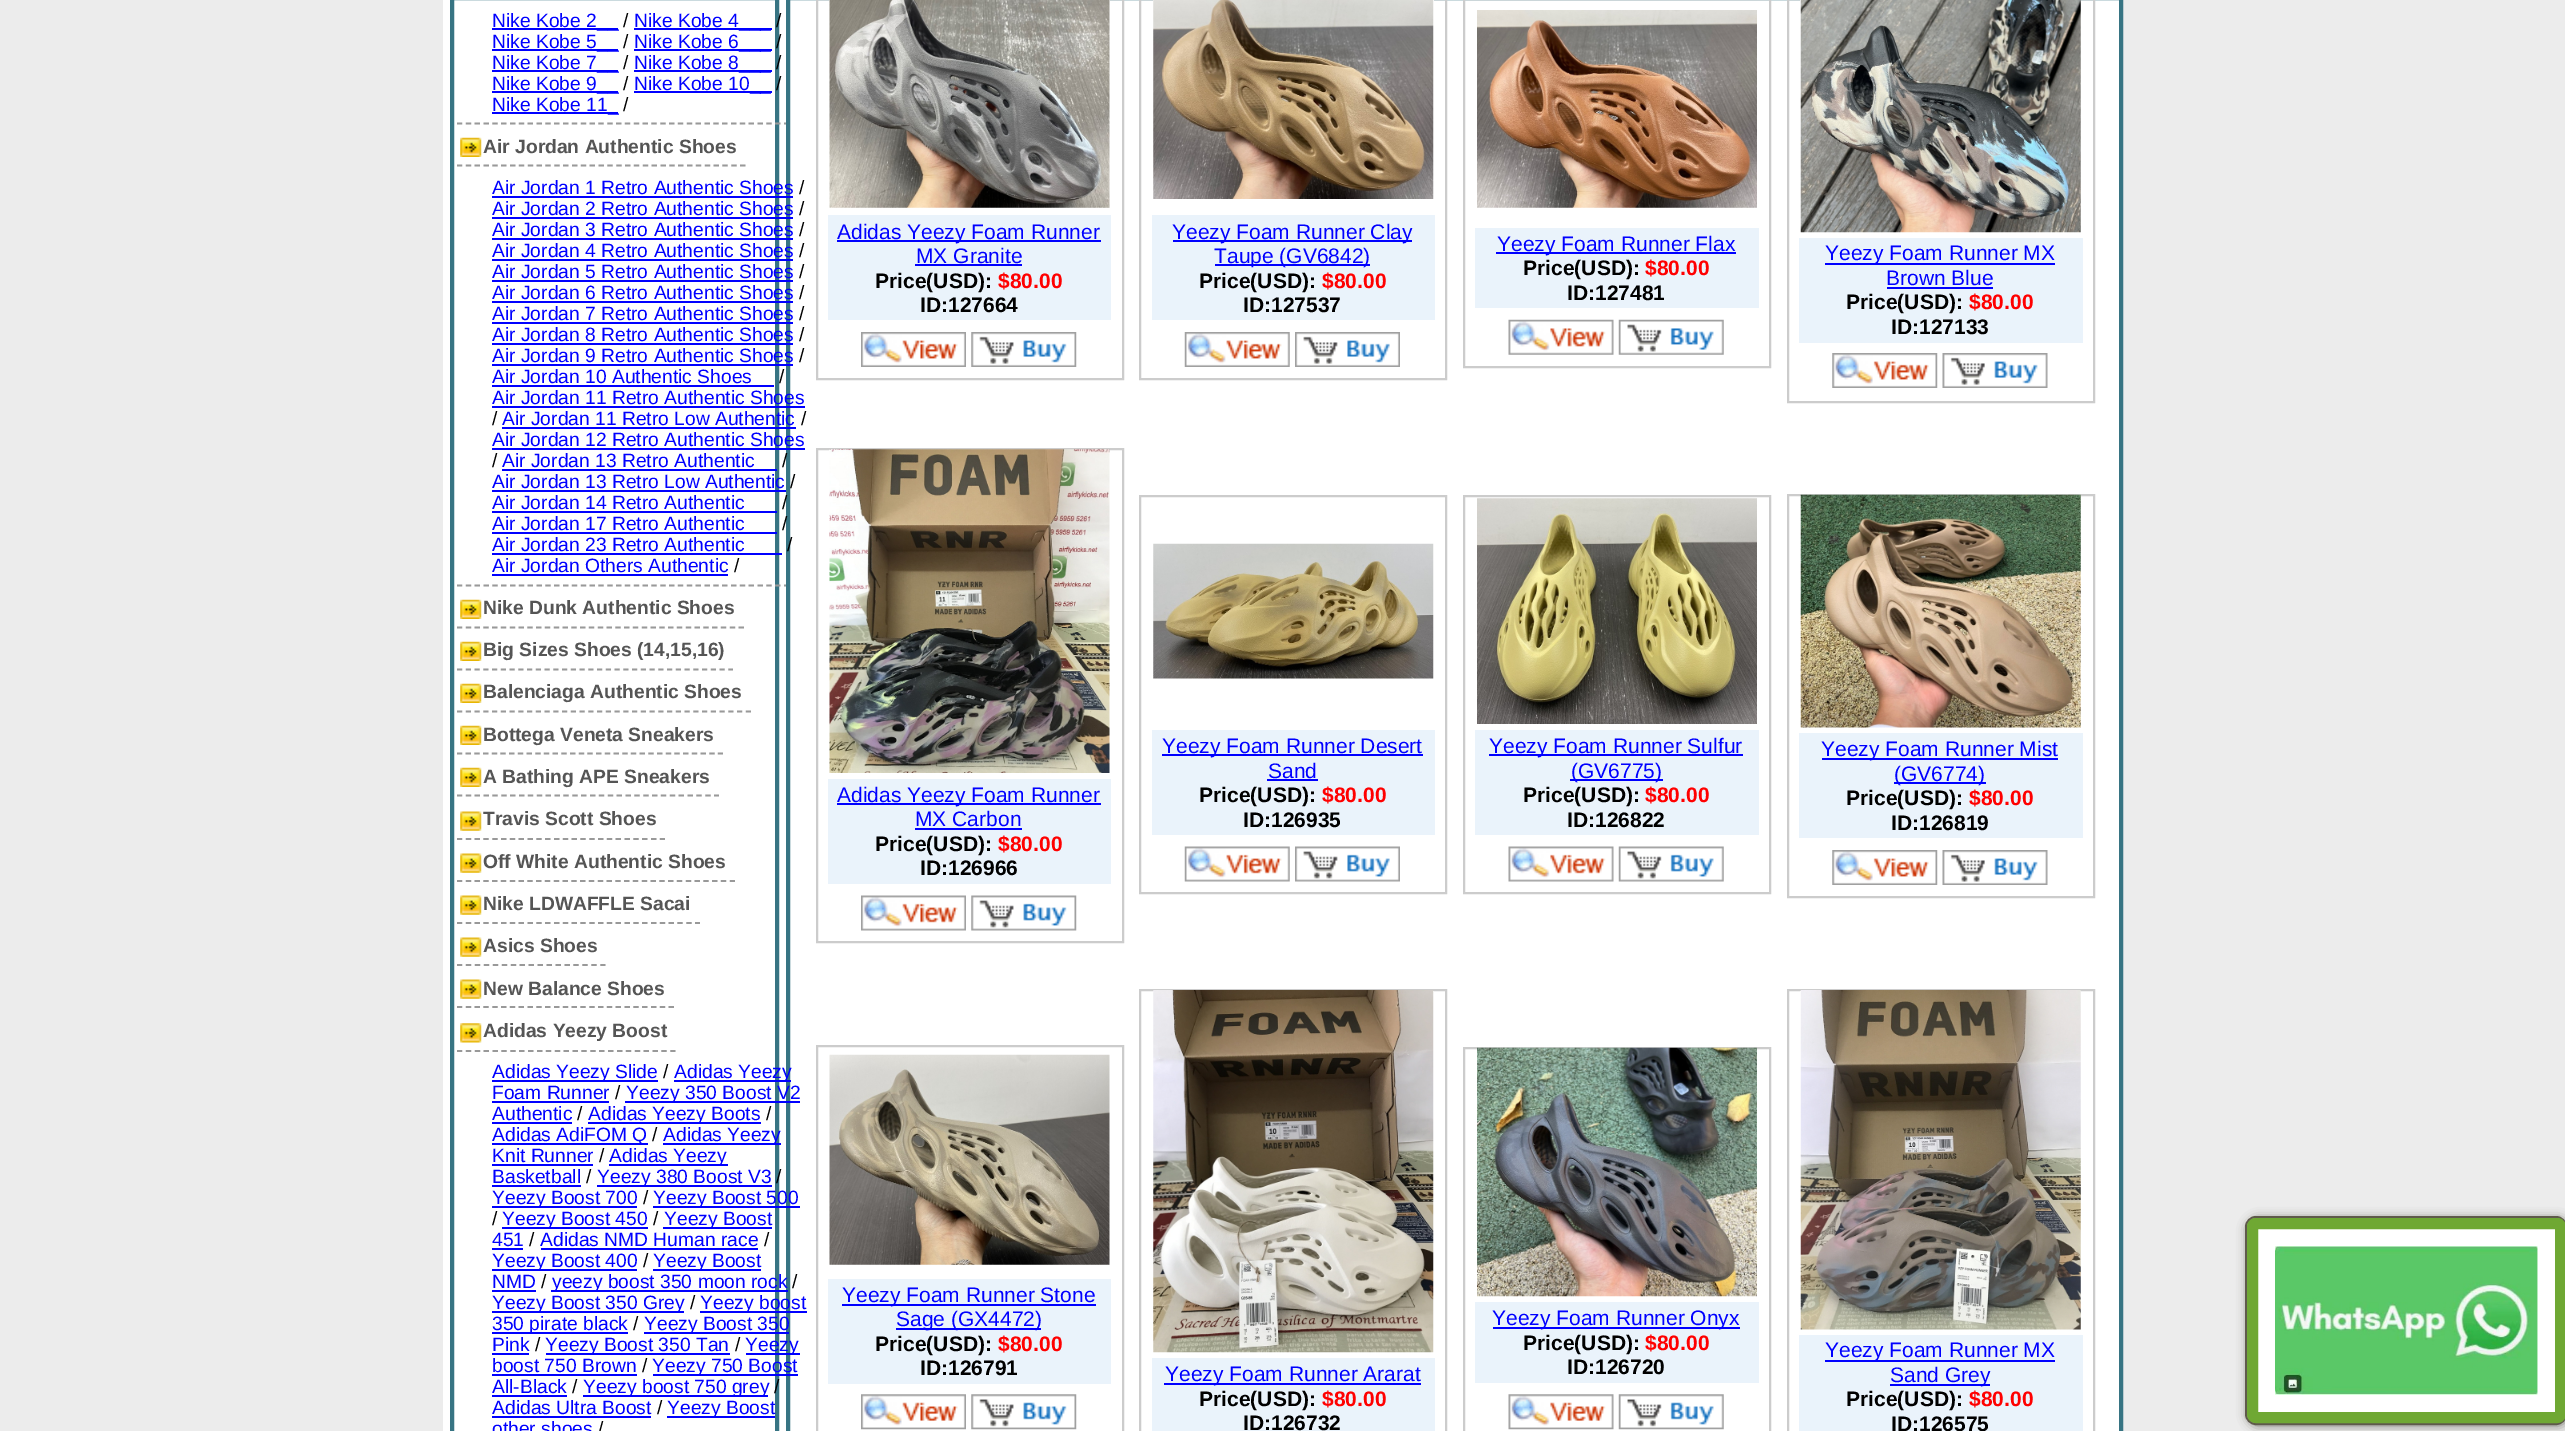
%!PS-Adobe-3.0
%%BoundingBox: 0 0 2565 1431
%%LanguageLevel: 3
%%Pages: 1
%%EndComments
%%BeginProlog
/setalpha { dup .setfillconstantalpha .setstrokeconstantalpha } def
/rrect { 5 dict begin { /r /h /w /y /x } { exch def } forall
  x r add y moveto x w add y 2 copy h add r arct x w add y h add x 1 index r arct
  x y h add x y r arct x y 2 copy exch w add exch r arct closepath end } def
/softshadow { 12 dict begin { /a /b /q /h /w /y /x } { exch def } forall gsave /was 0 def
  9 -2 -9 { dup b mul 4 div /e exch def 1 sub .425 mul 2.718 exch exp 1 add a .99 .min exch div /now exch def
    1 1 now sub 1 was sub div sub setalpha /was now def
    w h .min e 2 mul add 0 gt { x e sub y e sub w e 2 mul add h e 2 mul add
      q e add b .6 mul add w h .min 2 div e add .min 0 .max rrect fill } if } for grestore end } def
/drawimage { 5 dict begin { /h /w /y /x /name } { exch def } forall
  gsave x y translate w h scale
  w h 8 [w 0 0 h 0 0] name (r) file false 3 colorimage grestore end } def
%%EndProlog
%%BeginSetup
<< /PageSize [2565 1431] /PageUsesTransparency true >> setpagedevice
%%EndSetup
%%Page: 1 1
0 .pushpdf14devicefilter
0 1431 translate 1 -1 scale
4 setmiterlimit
0.925 setgray
0 0 2565 1431 rectfill
1 setgray
443 0 343 1431 rectfill
0.216 0.455 0.514 setrgbcolor
4 setlinewidth
452 -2 325 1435 rectstroke
0.6 setgray
1.8 setlinewidth
[5.25 3.59] 0 setdash
newpath 457 123.5 moveto 815.5 123.5 lineto stroke
0 0 1 setrgbcolor
492 28 126 2 rectfill
634 28 138 2 rectfill
492 49 126 2 rectfill
634 49 138 2 rectfill
492 70 126 2 rectfill
634 70 138 2 rectfill
492 91 126 2 rectfill
634 91 138 2 rectfill
492 112 126 2 rectfill
(images/1.raw) 460 137 22 20 drawimage
0.6 setgray
[5.25 3.6] 0 setdash
newpath 457 165.5 moveto 745.5 165.5 lineto stroke
[5.25 3.59] 0 setdash
newpath 457 585.5 moveto 815.5 585.5 lineto stroke
1 setgray
newpath 788 -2 moveto 2121 -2 lineto 2121 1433 lineto 788 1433 lineto closepath gsave fill grestore
0.216 0.455 0.514 setrgbcolor
4 setlinewidth
[] 0 setdash
stroke
0 0 1 setrgbcolor
492 196 301 2 rectfill
492 217 301 2 rectfill
492 238 301 2 rectfill
492 259 301 2 rectfill
492 280 301 2 rectfill
492 301 301 2 rectfill
492 322 301 2 rectfill
492 343 301 2 rectfill
492 364 301 2 rectfill
492 385 282 2 rectfill
492 406 313 2 rectfill
502 427 294 2 rectfill
492 448 313 2 rectfill
502 469 275 2 rectfill
492 490 294 2 rectfill
492 511 285 2 rectfill
492 532 285 2 rectfill
492 553 290 2 rectfill
492 574 236 2 rectfill
(images/1.raw) 460 599 22 20 drawimage
0.6 setgray
1.8 setlinewidth
[5.25 3.55] 0 setdash
newpath 457 627.5 moveto 744 627.5 lineto stroke
(images/1.raw) 460 641 22 20 drawimage
[5.25 3.5] 0 setdash
newpath 457 669.5 moveto 733 669.5 lineto stroke
(images/1.raw) 460 683 22 20 drawimage
newpath 457 711.5 moveto 751 711.5 lineto stroke
(images/1.raw) 460 725 22 20 drawimage
[5.25 3.45] 0 setdash
newpath 457 753.5 moveto 723 753.5 lineto stroke
(images/1.raw) 460 767 22 20 drawimage
[5.25 3.62] 0 setdash
newpath 457 795.5 moveto 719 795.5 lineto stroke
(images/2.raw) 460 811 22 20 drawimage
[5.25 3.57] 0 setdash
newpath 457 839 moveto 665 839 lineto stroke
(images/2.raw) 460 853 22 20 drawimage
[5.25 3.55] 0 setdash
newpath 457 881 moveto 735 881 lineto stroke
(images/2.raw) 460 895 22 20 drawimage
[5.25 3.57] 0 setdash
newpath 457 923 moveto 700 923 lineto stroke
(images/2.raw) 460 937 22 20 drawimage
[5.25 3.71] 0 setdash
newpath 457 965 moveto 605.5 965 lineto stroke
(images/2.raw) 460 979 22 20 drawimage
[5.25 3.57] 0 setdash
newpath 457 1007 moveto 674 1007 lineto stroke
(images/3.raw) 460 1023 22 20 drawimage
[5.25 3.64] 0 setdash
newpath 457 1051 moveto 675.5 1051 lineto stroke
0 0 1 setrgbcolor
492 1080 166 2 rectfill
674 1080 117 2 rectfill
492 1101 117 2 rectfill
625 1101 175 2 rectfill
492 1122 80 2 rectfill
588 1122 173 2 rectfill
492 1143 156 2 rectfill
663 1143 118 2 rectfill
492 1164 101 2 rectfill
609 1164 119 2 rectfill
492 1185 89 2 rectfill
597 1185 175 2 rectfill
492 1206 145 2 rectfill
653 1206 147 2 rectfill
502 1227 146 2 rectfill
663 1227 109 2 rectfill
492 1248 31 2 rectfill
541 1248 217 2 rectfill
492 1269 145 2 rectfill
653 1269 108 2 rectfill
492 1290 44 2 rectfill
551 1290 237 2 rectfill
492 1311 192 2 rectfill
700 1311 107 2 rectfill
492 1332 136 2 rectfill
644 1332 145 2 rectfill
492 1353 37 2 rectfill
546 1353 184 2 rectfill
746 1353 54 2 rectfill
492 1374 145 2 rectfill
653 1374 145 2 rectfill
492 1395 75 2 rectfill
583 1395 185 2 rectfill
492 1416 159 2 rectfill
667 1416 108 2 rectfill
0.8 setgray
2 setlinewidth
[] 0 setdash
817 -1 306 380 rectstroke
(images/4.raw) 829 0 281 208 drawimage
0.918 0.953 0.984 setrgbcolor
828 215 283 105 rectfill
0 0 1 setrgbcolor
837 240 264 2 rectfill
915 264 107 2 rectfill
(images/5.raw) 861 332 105 35 drawimage
(images/6.raw) 971 332 106 35 drawimage
0.8 setgray
1140 -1 306 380 rectstroke
(images/7.raw) 1153 0 281 199 drawimage
0.918 0.953 0.984 setrgbcolor
1152 215 283 105 rectfill
0 0 1 setrgbcolor
1173 240 239 2 rectfill
1215 264 155 2 rectfill
(images/8.raw) 1184 332 106 35 drawimage
(images/9.raw) 1295 332 105 35 drawimage
0.8 setgray
1464 -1 306 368 rectstroke
(images/10.raw) 1477 10 280 198 drawimage
0.918 0.953 0.984 setrgbcolor
1475 228 284 80 rectfill
0 0 1 setrgbcolor
1496 252 240 2 rectfill
(images/11.raw) 1508 319 106 36 drawimage
(images/12.raw) 1618 319 106 36 drawimage
0.8 setgray
1788 -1 306 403 rectstroke
(images/13.raw) 1800 0 281 233 drawimage
0.918 0.953 0.984 setrgbcolor
1799 238 284 105 rectfill
0 0 1 setrgbcolor
1825 263 230 2 rectfill
1887 287 106 2 rectfill
(images/14.raw) 1832 353 106 35 drawimage
(images/15.raw) 1942 353 106 35 drawimage
0.8 setgray
817 449 306 493 rectstroke
(images/16.raw) 829 449 281 324 drawimage
0.918 0.953 0.984 setrgbcolor
828 779 283 105 rectfill
0 0 1 setrgbcolor
837 803 264 2 rectfill
915 828 107 2 rectfill
(images/17.raw) 861 895 105 36 drawimage
(images/18.raw) 971 895 106 36 drawimage
0.8 setgray
1140 496 306 397 rectstroke
(images/19.raw) 1153 543 281 136 drawimage
0.918 0.953 0.984 setrgbcolor
1152 730 283 105 rectfill
0 0 1 setrgbcolor
1162 754 261 2 rectfill
1267 779 51 2 rectfill
(images/20.raw) 1184 846 106 36 drawimage
(images/21.raw) 1295 846 105 36 drawimage
0.8 setgray
1464 496 306 397 rectstroke
(images/22.raw) 1477 498 280 226 drawimage
0.918 0.953 0.984 setrgbcolor
1475 730 284 105 rectfill
0 0 1 setrgbcolor
1489 754 254 2 rectfill
1570 779 93 2 rectfill
(images/23.raw) 1508 846 106 36 drawimage
(images/24.raw) 1618 846 106 36 drawimage
0.8 setgray
1788 495 306 402 rectstroke
(images/25.raw) 1800 494 281 234 drawimage
0.918 0.953 0.984 setrgbcolor
1799 733 284 105 rectfill
0 0 1 setrgbcolor
1822 758 236 2 rectfill
1894 782 92 2 rectfill
(images/14.raw) 1832 850 106 35 drawimage
(images/15.raw) 1942 850 106 35 drawimage
0.8 setgray
817 1046 306 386 rectstroke
(images/26.raw) 829 1054 281 211 drawimage
0.918 0.953 0.984 setrgbcolor
828 1279 283 105 rectfill
0 0 1 setrgbcolor
842 1304 254 2 rectfill
896 1328 145 2 rectfill
(images/27.raw) 861 1394 105 36 drawimage
(images/28.raw) 971 1394 106 36 drawimage
0.8 setgray
1140 990 306 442 rectstroke
(images/29.raw) 1153 990 281 363 drawimage
0.918 0.953 0.984 setrgbcolor
1152 1358 283 73 rectfill
0 0 1 setrgbcolor
1164 1383 257 2 rectfill
0.8 setgray
1464 1048 306 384 rectstroke
(images/30.raw) 1477 1047 280 250 drawimage
0.918 0.953 0.984 setrgbcolor
1475 1302 284 81 rectfill
0 0 1 setrgbcolor
1493 1327 247 2 rectfill
(images/31.raw) 1508 1394 106 36 drawimage
(images/32.raw) 1618 1394 106 36 drawimage
0.8 setgray
1788 990 306 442 rectstroke
(images/33.raw) 1800 990 281 340 drawimage
0.918 0.953 0.984 setrgbcolor
1799 1335 284 96 rectfill
0 0 1 setrgbcolor
1825 1360 230 2 rectfill
1890 1384 100 2 rectfill
0.039 0.039 0 setrgbcolor
2247 1218 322 208 11 5 0.5 softshadow
0.373 0.353 0.294 setrgbcolor
2246 1217 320 207 10 rrect stroke
1 setgray
2252.5 1223.5 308 194 3.5 rrect gsave fill grestore
0.435 0.659 0.2 setrgbcolor
11 setlinewidth
stroke
(images/34.raw) 2275 1246 263 149 drawimage
/LiberationSans-Regular [19.25 0 0 -19.25 0 0] selectfont
0 0 1 setrgbcolor
492 27 moveto (Nike Kobe 2__) show
0 setgray
623 27 moveto (/) show
0 0 1 setrgbcolor
634 27 moveto (Nike Kobe 4___) show
0 setgray
776 27 moveto (/) show
0 0 1 setrgbcolor
492 48 moveto (Nike Kobe 5__) show
0 setgray
623 48 moveto (/) show
0 0 1 setrgbcolor
634 48 moveto (Nike Kobe 6___) show
0 setgray
776 48 moveto (/) show
0 0 1 setrgbcolor
492 69 moveto (Nike Kobe 7__) show
0 setgray
623 69 moveto (/) show
0 0 1 setrgbcolor
634 69 moveto (Nike Kobe 8___) show
0 setgray
776 69 moveto (/) show
0 0 1 setrgbcolor
492 90 moveto (Nike Kobe 9__) show
0 setgray
623 90 moveto (/) show
0 0 1 setrgbcolor
634 90 moveto (Nike Kobe 10__) show
0 setgray
776 90 moveto (/) show
0 0 1 setrgbcolor
492 111 moveto (Nike Kobe 11_) show
0 setgray
623 111 moveto (/) show
/LiberationSans-Bold [19.25 0 0 -19.25 0 0] selectfont
0.333 setgray
483 153 moveto (Air Jordan Authentic Shoes) show
/LiberationSans-Regular [19.25 0 0 -19.25 0 0] selectfont
0 0 1 setrgbcolor
492 194 moveto (Air Jordan 1 Retro Authentic Shoes) show
0 setgray
799 194 moveto (/) show
0 0 1 setrgbcolor
492 215 moveto (Air Jordan 2 Retro Authentic Shoes) show
0 setgray
799 215 moveto (/) show
0 0 1 setrgbcolor
492 236 moveto (Air Jordan 3 Retro Authentic Shoes) show
0 setgray
799 236 moveto (/) show
0 0 1 setrgbcolor
492 257 moveto (Air Jordan 4 Retro Authentic Shoes) show
0 setgray
799 257 moveto (/) show
0 0 1 setrgbcolor
492 278 moveto (Air Jordan 5 Retro Authentic Shoes) show
0 setgray
799 278 moveto (/) show
0 0 1 setrgbcolor
492 299 moveto (Air Jordan 6 Retro Authentic Shoes) show
0 setgray
799 299 moveto (/) show
0 0 1 setrgbcolor
492 320 moveto (Air Jordan 7 Retro Authentic Shoes) show
0 setgray
799 320 moveto (/) show
0 0 1 setrgbcolor
492 341 moveto (Air Jordan 8 Retro Authentic Shoes) show
0 setgray
799 341 moveto (/) show
0 0 1 setrgbcolor
492 362 moveto (Air Jordan 9 Retro Authentic Shoes) show
0 setgray
799 362 moveto (/) show
0 0 1 setrgbcolor
492 383 moveto (Air Jordan 10 Authentic Shoes) show
0 setgray
779 383 moveto (/) show
0 0 1 setrgbcolor
492 404 moveto (Air Jordan 11 Retro Authentic Shoes) show
0 setgray
492 425 moveto (/) show
0 0 1 setrgbcolor
502 425 moveto (Air Jordan 11 Retro Low Authentic) show
0 setgray
801 425 moveto (/) show
0 0 1 setrgbcolor
492 446 moveto (Air Jordan 12 Retro Authentic Shoes) show
0 setgray
492 467 moveto (/) show
0 0 1 setrgbcolor
502 467 moveto (Air Jordan 13 Retro Authentic) show
0 setgray
782 467 moveto (/) show
0 0 1 setrgbcolor
492 488 moveto (Air Jordan 13 Retro Low Authentic) show
0 setgray
790 488 moveto (/) show
0 0 1 setrgbcolor
492 509 moveto (Air Jordan 14 Retro Authentic) show
0 setgray
782 509 moveto (/) show
0 0 1 setrgbcolor
492 530 moveto (Air Jordan 17 Retro Authentic) show
0 setgray
782 530 moveto (/) show
0 0 1 setrgbcolor
492 551 moveto (Air Jordan 23 Retro Authentic) show
0 setgray
787 551 moveto (/) show
0 0 1 setrgbcolor
492 572 moveto (Air Jordan Others Authentic) show
0 setgray
734 572 moveto (/) show
/LiberationSans-Bold [19.25 0 0 -19.25 0 0] selectfont
0.333 setgray
483 614 moveto (Nike Dunk Authentic Shoes) show
483 656 moveto (Big Sizes Shoes \(14,15,16\)) show
483 698 moveto (Balenciaga Authentic Shoes) show
483 741 moveto (Bottega Veneta Sneakers) show
483 783 moveto (A Bathing APE Sneakers) show
483 825 moveto (Travis Scott Shoes) show
483 868 moveto (Off White Authentic Shoes) show
483 910 moveto (Nike LDWAFFLE Sacai) show
483 952 moveto (Asics Shoes) show
483 995 moveto (New Balance Shoes) show
483 1037 moveto (Adidas Yeezy Boost) show
/LiberationSans-Regular [19.25 0 0 -19.25 0 0] selectfont
0 0 1 setrgbcolor
492 1078 moveto (Adidas Yeezy Slide) show
0 setgray
663 1078 moveto (/) show
0 0 1 setrgbcolor
674 1078 moveto (Adidas Yeezy) show
492 1099 moveto (Foam Runner) show
0 setgray
615 1099 moveto (/) show
0 0 1 setrgbcolor
626 1099 moveto (Yeezy 350 Boost V2) show
492 1120 moveto (Authentic) show
0 setgray
577 1120 moveto (/) show
0 0 1 setrgbcolor
588 1120 moveto (Adidas Yeezy Boots) show
0 setgray
766 1120 moveto (/) show
0 0 1 setrgbcolor
492 1141 moveto (Adidas AdiFOM Q) show
0 setgray
652 1141 moveto (/) show
0 0 1 setrgbcolor
663 1141 moveto (Adidas Yeezy) show
492 1162 moveto (Knit Runner) show
0 setgray
599 1162 moveto (/) show
0 0 1 setrgbcolor
609 1162 moveto (Adidas Yeezy) show
492 1183 moveto (Basketball) show
0 setgray
586 1183 moveto (/) show
0 0 1 setrgbcolor
597 1183 moveto (Yeezy 380 Boost V3) show
0 setgray
776 1183 moveto (/) show
0 0 1 setrgbcolor
492 1204 moveto (Yeezy Boost 700) show
0 setgray
643 1204 moveto (/) show
0 0 1 setrgbcolor
653 1204 moveto (Yeezy Boost 500) show
0 setgray
492 1225 moveto (/) show
0 0 1 setrgbcolor
502 1225 moveto (Yeezy Boost 450) show
0 setgray
653 1225 moveto (/) show
0 0 1 setrgbcolor
664 1225 moveto (Yeezy Boost) show
492 1246 moveto (451) show
0 setgray
529 1246 moveto (/) show
0 0 1 setrgbcolor
540 1246 moveto (Adidas NMD Human race) show
0 setgray
764 1246 moveto (/) show
0 0 1 setrgbcolor
492 1267 moveto (Yeezy Boost 400) show
0 setgray
643 1267 moveto (/) show
0 0 1 setrgbcolor
653 1267 moveto (Yeezy Boost) show
492 1288 moveto (NMD) show
0 setgray
541 1288 moveto (/) show
0 0 1 setrgbcolor
552 1288 moveto (yeezy boost 350 moon rock) show
0 setgray
792 1288 moveto (/) show
0 0 1 setrgbcolor
492 1309 moveto (Yeezy Boost 350 Grey) show
0 setgray
690 1309 moveto (/) show
0 0 1 setrgbcolor
700 1309 moveto (Yeezy boost) show
492 1330 moveto (350 pirate black) show
0 setgray
633 1330 moveto (/) show
0 0 1 setrgbcolor
644 1330 moveto (Yeezy Boost 350) show
492 1351 moveto (Pink) show
0 setgray
535 1351 moveto (/) show
0 0 1 setrgbcolor
545 1351 moveto (Yeezy Boost 350 Tan) show
0 setgray
735 1351 moveto (/) show
0 0 1 setrgbcolor
745 1351 moveto (Yeezy) show
492 1372 moveto (boost 750 Brown) show
0 setgray
642 1372 moveto (/) show
0 0 1 setrgbcolor
652 1372 moveto (Yeezy 750 Boost) show
492 1393 moveto (All-Black) show
0 setgray
572 1393 moveto (/) show
0 0 1 setrgbcolor
583 1393 moveto (Yeezy boost 750 grey) show
0 setgray
774 1393 moveto (/) show
0 0 1 setrgbcolor
492 1414 moveto (Adidas Ultra Boost) show
0 setgray
657 1414 moveto (/) show
0 0 1 setrgbcolor
667 1414 moveto (Yeezy Boost) show
492 1435 moveto (other shoes) show
0 setgray
598 1435 moveto (/) show
/LiberationSans-Regular [21 0 0 -21 0 0] selectfont
0 0 1 setrgbcolor
837 239 moveto (Adidas Yeezy Foam Runner) show
916 263 moveto (MX Granite) show
/LiberationSans-Bold [21 0 0 -21 0 0] selectfont
0 setgray
875 288 moveto (Price\(USD\):) show
1 0 0 setrgbcolor
998 288 moveto ($80.00) show
0 setgray
920 312 moveto (ID:127664) show
/LiberationSans-Regular [21 0 0 -21 0 0] selectfont
0 0 1 setrgbcolor
1172 239 moveto (Yeezy Foam Runner Clay) show
1214 263 moveto (Taupe \(GV6842\)) show
/LiberationSans-Bold [21 0 0 -21 0 0] selectfont
0 setgray
1199 288 moveto (Price\(USD\):) show
1 0 0 setrgbcolor
1322 288 moveto ($80.00) show
0 setgray
1243 312 moveto (ID:127537) show
/LiberationSans-Regular [21 0 0 -21 0 0] selectfont
0 0 1 setrgbcolor
1497 251 moveto (Yeezy Foam Runner Flax) show
/LiberationSans-Bold [21 0 0 -21 0 0] selectfont
0 setgray
1523 275 moveto (Price\(USD\):) show
1 0 0 setrgbcolor
1645 275 moveto ($80.00) show
0 setgray
1567 300 moveto (ID:127481) show
/LiberationSans-Regular [21 0 0 -21 0 0] selectfont
0 0 1 setrgbcolor
1825 260 moveto (Yeezy Foam Runner MX) show
1886 285 moveto (Brown Blue) show
/LiberationSans-Bold [21 0 0 -21 0 0] selectfont
0 setgray
1846 309 moveto (Price\(USD\):) show
1 0 0 setrgbcolor
1969 309 moveto ($80.00) show
0 setgray
1891 334 moveto (ID:127133) show
/LiberationSans-Regular [21 0 0 -21 0 0] selectfont
0 0 1 setrgbcolor
837 802 moveto (Adidas Yeezy Foam Runner) show
915 826 moveto (MX Carbon) show
/LiberationSans-Bold [21 0 0 -21 0 0] selectfont
0 setgray
875 851 moveto (Price\(USD\):) show
1 0 0 setrgbcolor
998 851 moveto ($80.00) show
0 setgray
920 875 moveto (ID:126966) show
/LiberationSans-Regular [21 0 0 -21 0 0] selectfont
0 0 1 setrgbcolor
1162 753 moveto (Yeezy Foam Runner Desert) show
1268 778 moveto (Sand) show
/LiberationSans-Bold [21 0 0 -21 0 0] selectfont
0 setgray
1199 802 moveto (Price\(USD\):) show
1 0 0 setrgbcolor
1322 802 moveto ($80.00) show
0 setgray
1243 827 moveto (ID:126935) show
/LiberationSans-Regular [21 0 0 -21 0 0] selectfont
0 0 1 setrgbcolor
1489 753 moveto (Yeezy Foam Runner Sulfur) show
1571 778 moveto (\(GV6775\)) show
/LiberationSans-Bold [21 0 0 -21 0 0] selectfont
0 setgray
1523 802 moveto (Price\(USD\):) show
1 0 0 setrgbcolor
1645 802 moveto ($80.00) show
0 setgray
1567 827 moveto (ID:126822) show
/LiberationSans-Regular [21 0 0 -21 0 0] selectfont
0 0 1 setrgbcolor
1821 756 moveto (Yeezy Foam Runner Mist) show
1894 781 moveto (\(GV6774\)) show
/LiberationSans-Bold [21 0 0 -21 0 0] selectfont
0 setgray
1846 805 moveto (Price\(USD\):) show
1 0 0 setrgbcolor
1969 805 moveto ($80.00) show
0 setgray
1891 830 moveto (ID:126819) show
/LiberationSans-Regular [21 0 0 -21 0 0] selectfont
0 0 1 setrgbcolor
842 1302 moveto (Yeezy Foam Runner Stone) show
896 1326 moveto (Sage \(GX4472\)) show
/LiberationSans-Bold [21 0 0 -21 0 0] selectfont
0 setgray
875 1351 moveto (Price\(USD\):) show
1 0 0 setrgbcolor
998 1351 moveto ($80.00) show
0 setgray
920 1375 moveto (ID:126791) show
/LiberationSans-Regular [21 0 0 -21 0 0] selectfont
0 0 1 setrgbcolor
1165 1381 moveto (Yeezy Foam Runner Ararat) show
/LiberationSans-Bold [21 0 0 -21 0 0] selectfont
0 setgray
1199 1406 moveto (Price\(USD\):) show
1 0 0 setrgbcolor
1322 1406 moveto ($80.00) show
0 setgray
1243 1430 moveto (ID:126732) show
/LiberationSans-Regular [21 0 0 -21 0 0] selectfont
0 0 1 setrgbcolor
1492 1325 moveto (Yeezy Foam Runner Onyx) show
/LiberationSans-Bold [21 0 0 -21 0 0] selectfont
0 setgray
1523 1350 moveto (Price\(USD\):) show
1 0 0 setrgbcolor
1645 1350 moveto ($80.00) show
0 setgray
1567 1374 moveto (ID:126720) show
/LiberationSans-Regular [21 0 0 -21 0 0] selectfont
0 0 1 setrgbcolor
1825 1357 moveto (Yeezy Foam Runner MX) show
1890 1382 moveto (Sand Grey) show
/LiberationSans-Bold [21 0 0 -21 0 0] selectfont
0 setgray
1846 1406 moveto (Price\(USD\):) show
1 0 0 setrgbcolor
1969 1406 moveto ($80.00) show
0 setgray
1891 1431 moveto (ID:126575) show
.poppdf14devicefilter showpage
%%EOF
